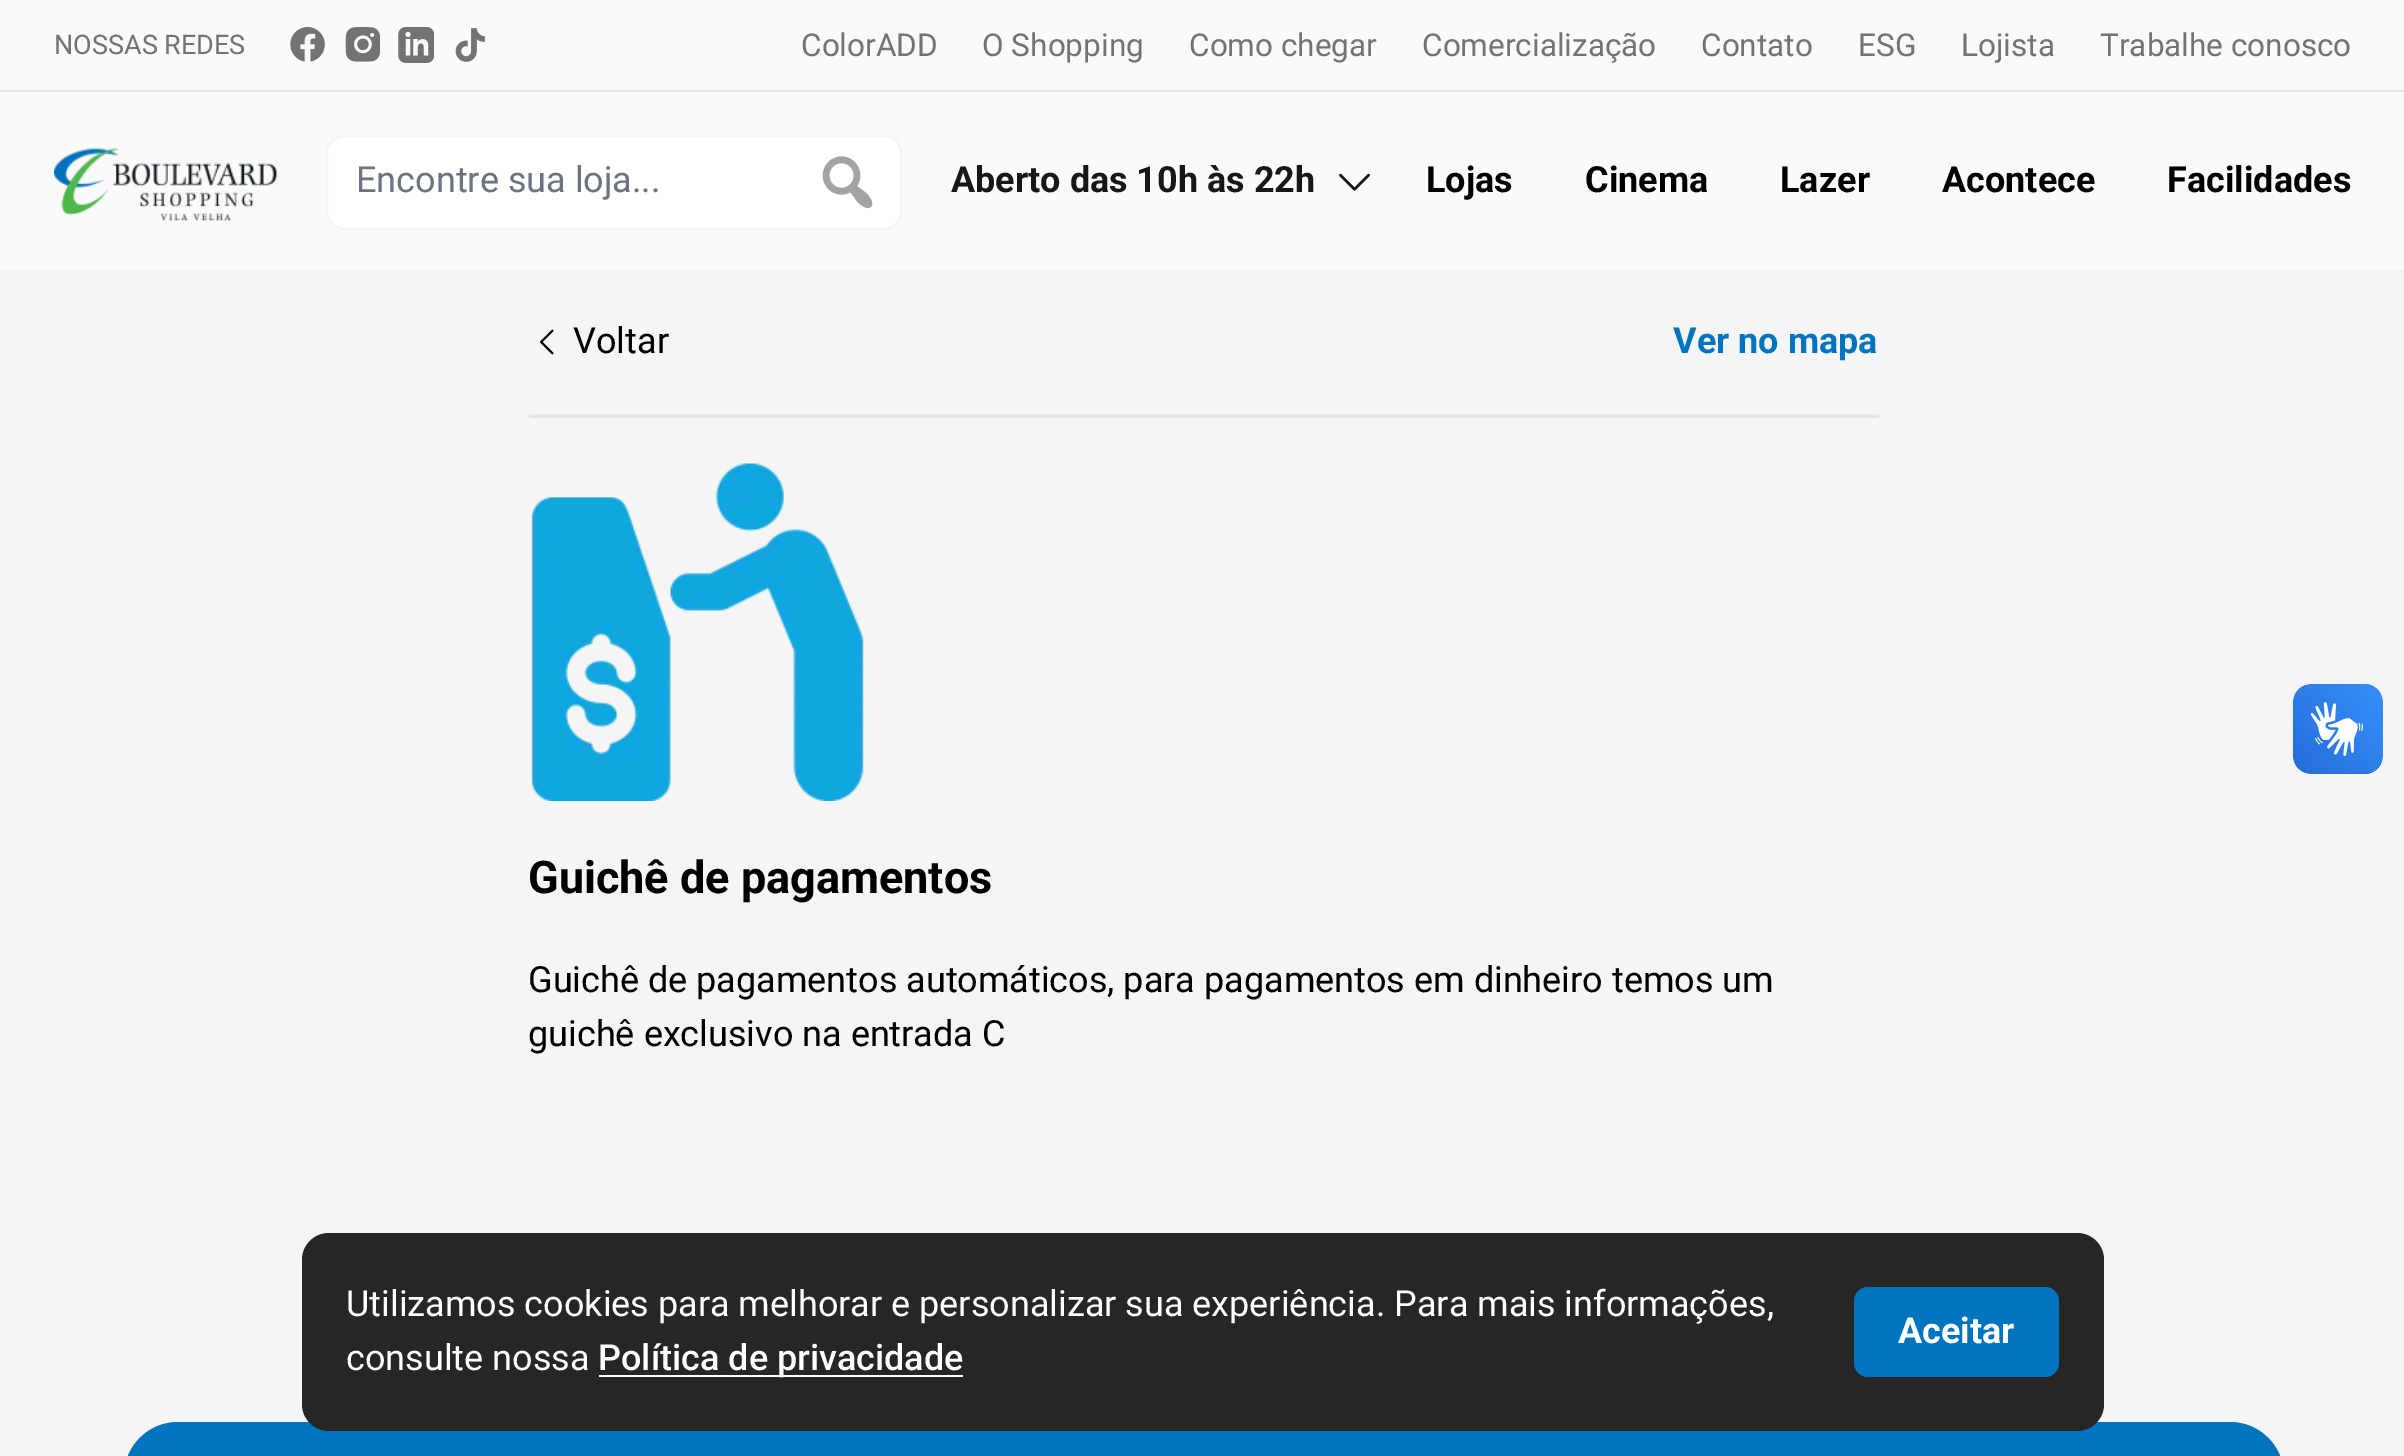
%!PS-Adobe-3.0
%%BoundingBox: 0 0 2404 1456
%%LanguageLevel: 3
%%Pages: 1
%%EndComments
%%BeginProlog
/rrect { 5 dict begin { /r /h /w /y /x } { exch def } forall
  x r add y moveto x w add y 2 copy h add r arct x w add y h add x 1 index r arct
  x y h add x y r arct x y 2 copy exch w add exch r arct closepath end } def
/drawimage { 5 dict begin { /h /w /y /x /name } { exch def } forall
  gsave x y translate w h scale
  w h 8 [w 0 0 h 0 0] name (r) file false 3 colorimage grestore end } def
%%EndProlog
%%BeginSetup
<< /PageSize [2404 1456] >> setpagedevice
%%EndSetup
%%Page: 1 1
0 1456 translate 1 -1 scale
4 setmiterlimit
0.961 setgray
0 0 2404 1456 rectfill
0.98 setgray
0 0 2404 90 rectfill
(images/1.raw) 290 27 35 35 drawimage
(images/2.raw) 345 27 35 35 drawimage
(images/3.raw) 398 27 36 36 drawimage
(images/4.raw) 455 28 30 34 drawimage
0 92 2404 178 rectfill
0.898 setgray
0 90 2404 2 rectfill
(images/5.raw) 54 147 223 74 drawimage
1 setgray
327 136 574 93 17 rrect gsave fill grestore
0.961 setgray
2 setlinewidth
stroke
(images/6.raw) 822 156 51 53 drawimage
(images/7.raw) 1339 173 31 18 drawimage
(images/8.raw) 540 329 14 26 drawimage
0.898 setgray
529 416 1350 2 rectfill
0.898 0.906 0.922 setrgbcolor
529 414 1350 2 rectfill
(images/9.raw) 531 463 333 338 drawimage
(images/10.raw) 2292 684 91 90 drawimage
(images/11.raw) 2293 684 90 90 drawimage
0 0.455 0.745 setrgbcolor
124 1422 2160 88 54 rrect fill
0.149 setgray
302 1233 1802 198 27 rrect fill
1 setgray
599 1375 364 2 rectfill
0 0.455 0.745 setrgbcolor
1854 1287 205 90 14 rrect fill
/Roboto-Regular [27 0 0 -27 0 0] selectfont
0.451 setgray
54 54 moveto (NOSSAS REDES) show
/Roboto-Regular [31.5 0 0 -31.5 0 0] selectfont
801 56 moveto (ColorADD) show
982 56 moveto (O Shopping) show
1189 56 moveto (Como chegar) show
1422 56 moveto (Comercialização) show
1701 56 moveto (Contato) show
1858 56 moveto (ESG) show
1961 56 moveto (Lojista) show
2100 56 moveto (Trabalhe conosco) show
/Roboto-Regular [36 0 0 -36 0 0] selectfont
0.42 0.447 0.502 setrgbcolor
356 192 moveto (Encontre sua loja...) show
/Roboto-Bold [36 0 0 -36 0 0] selectfont
0.09 setgray
951 192 moveto (Aberto das 10h às 22h) show
0 setgray
1426 192 moveto (Lojas) show
1585 192 moveto (Cinema) show
1780 192 moveto (Lazer) show
1942 192 moveto (Acontece) show
2167 192 moveto (Facilidades) show
/Roboto-Regular [36 0 0 -36 0 0] selectfont
573 353 moveto (Voltar) show
/Roboto-Bold [36 0 0 -36 0 0] selectfont
0 0.455 0.745 setrgbcolor
1673 353 moveto (Ver no mapa) show
/Roboto-Bold [45 0 0 -45 0 0] selectfont
0 setgray
528 893 moveto (Guichê de pagamentos) show
/Roboto-Regular [36 0 0 -36 0 0] selectfont
528 992 moveto (Guichê de pagamentos automáticos, para pagamentos em dinheiro temos um) show
528 1046 moveto (guichê exclusivo na entrada C) show
1 setgray
346 1316 moveto (Utilizamos cookies para melhorar e personalizar sua experiência. Para mais informações,) show
346 1370 moveto (consulte nossa) show
/Roboto-Medium [36 0 0 -36 0 0] selectfont
598 1370 moveto (Política de privacidade) show
/Roboto-Bold [36 0 0 -36 0 0] selectfont
1898 1343 moveto (Aceitar) show
showpage
%%EOF
